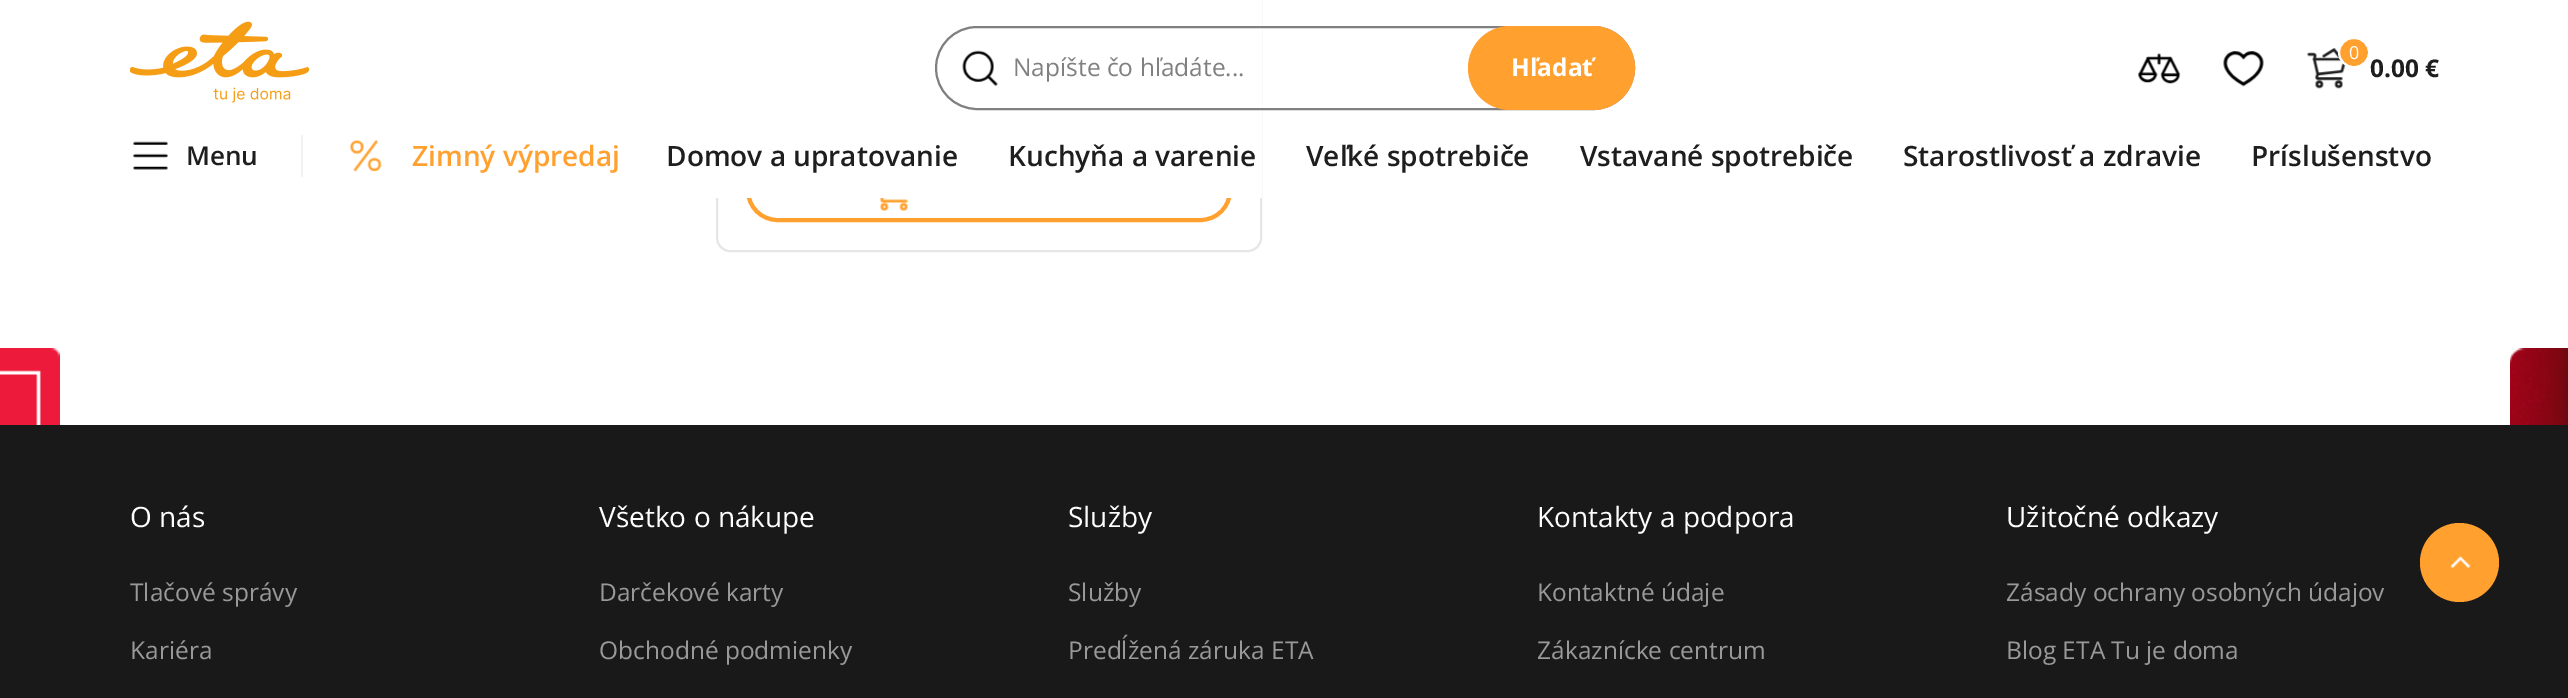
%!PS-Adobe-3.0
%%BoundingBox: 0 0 2568 698
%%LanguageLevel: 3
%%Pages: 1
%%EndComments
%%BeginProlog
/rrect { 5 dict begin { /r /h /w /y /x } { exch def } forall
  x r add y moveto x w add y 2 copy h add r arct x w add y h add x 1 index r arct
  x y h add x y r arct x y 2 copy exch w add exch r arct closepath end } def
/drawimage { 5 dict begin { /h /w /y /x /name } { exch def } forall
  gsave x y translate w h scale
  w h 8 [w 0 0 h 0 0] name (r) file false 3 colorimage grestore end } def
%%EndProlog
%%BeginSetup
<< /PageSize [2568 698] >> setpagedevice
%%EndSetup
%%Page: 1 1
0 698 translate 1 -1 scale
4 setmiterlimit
1 setgray
0 0 2568 698 rectfill
0.902 setgray
2 setlinewidth
717 -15 544 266 13 rrect stroke
1 0.627 0.184 setrgbcolor
4 setlinewidth
748 161 482 59 29.5 rrect stroke
(images/1.raw) 880 198 28 13 drawimage
1 setgray
716 0 546 198 rectfill
(images/2.raw) 130 21 180 82 drawimage
0.502 setgray
2 setlinewidth
936 27 698 82 41 rrect stroke
(images/3.raw) 962 50 36 36 drawimage
1 0.627 0.184 setrgbcolor
1468 26 167 84 42 rrect fill
(images/4.raw) 2138 53 43 31 drawimage
(images/5.raw) 2223 51 41 36 drawimage
(images/6.raw) 2307 48 39 41 drawimage
2339 38 30 29 14.5 rrect gsave fill grestore
1 setgray
stroke
(images/7.raw) 133 141 35 29 drawimage
0.949 setgray
301 135 2 42 rectfill
(images/8.raw) 350 139 32 33 drawimage
(images/9.raw) 0 348 60 77 drawimage
(images/10.raw) 2510 348 58 77 drawimage
0.098 setgray
0 425 2568 273 rectfill
1 0.627 0.184 setrgbcolor
newpath 2459.5 562.5 39.5 0 360 arc closepath fill
(images/11.raw) 2450 556 21 13 drawimage
/OpenSans-Regular [24.5 0 0 -24.5 0 0] selectfont
0.502 setgray
1013 76 moveto (Napíšte čo hľadáte...) show
/OpenSans-Bold [24.5 0 0 -24.5 0 0] selectfont
1 setgray
1511 76 moveto (Hľadať) show
/OpenSans-Regular [18 0 0 -18 0 0] selectfont
2349 59 moveto (0) show
/OpenSans-Bold [24.5 0 0 -24.5 0 0] selectfont
0.118 setgray
2370 77 moveto (0.00 €) show
/OpenSans-SemiBold [26 0 0 -26 0 0] selectfont
186 165 moveto (Menu) show
/OpenSans-SemiBold [28 0 0 -28 0 0] selectfont
1 0.627 0.184 setrgbcolor
412 166 moveto (Zimný výpredaj) show
0.118 setgray
666 166 moveto (Domov a upratovanie) show
1008 166 moveto (Kuchyňa a varenie) show
1306 166 moveto (Veľké spotrebiče) show
1580 166 moveto (Vstavané spotrebiče) show
1903 166 moveto (Starostlivosť a zdravie) show
2251 166 moveto (Príslušenstvo) show
/OpenSans-Regular [28 0 0 -28 0 0] selectfont
1 setgray
130 527 moveto (O nás) show
/OpenSans-Regular [24.5 0 0 -24.5 0 0] selectfont
0.6 setgray
130 601 moveto (Tlačové správy) show
130 659 moveto (Kariéra) show
/OpenSans-Regular [28 0 0 -28 0 0] selectfont
1 setgray
599 527 moveto (Všetko o nákupe) show
/OpenSans-Regular [24.5 0 0 -24.5 0 0] selectfont
0.6 setgray
599 601 moveto (Darčekové karty) show
599 659 moveto (Obchodné podmienky) show
/OpenSans-Regular [28 0 0 -28 0 0] selectfont
1 setgray
1068 527 moveto (Služby) show
/OpenSans-Regular [24.5 0 0 -24.5 0 0] selectfont
0.6 setgray
1068 601 moveto (Služby) show
1068 659 moveto (Predĺžená záruka ETA) show
/OpenSans-Regular [28 0 0 -28 0 0] selectfont
1 setgray
1537 527 moveto (Kontakty a podpora) show
/OpenSans-Regular [24.5 0 0 -24.5 0 0] selectfont
0.6 setgray
1537 601 moveto (Kontaktné údaje) show
1537 659 moveto (Zákaznícke centrum) show
/OpenSans-Regular [28 0 0 -28 0 0] selectfont
1 setgray
2006 527 moveto (Užitočné odkazy) show
/OpenSans-Regular [24.5 0 0 -24.5 0 0] selectfont
0.6 setgray
2006 601 moveto (Zásady ochrany osobných údajov) show
2006 659 moveto (Blog ETA Tu je doma) show
showpage
%%EOF
